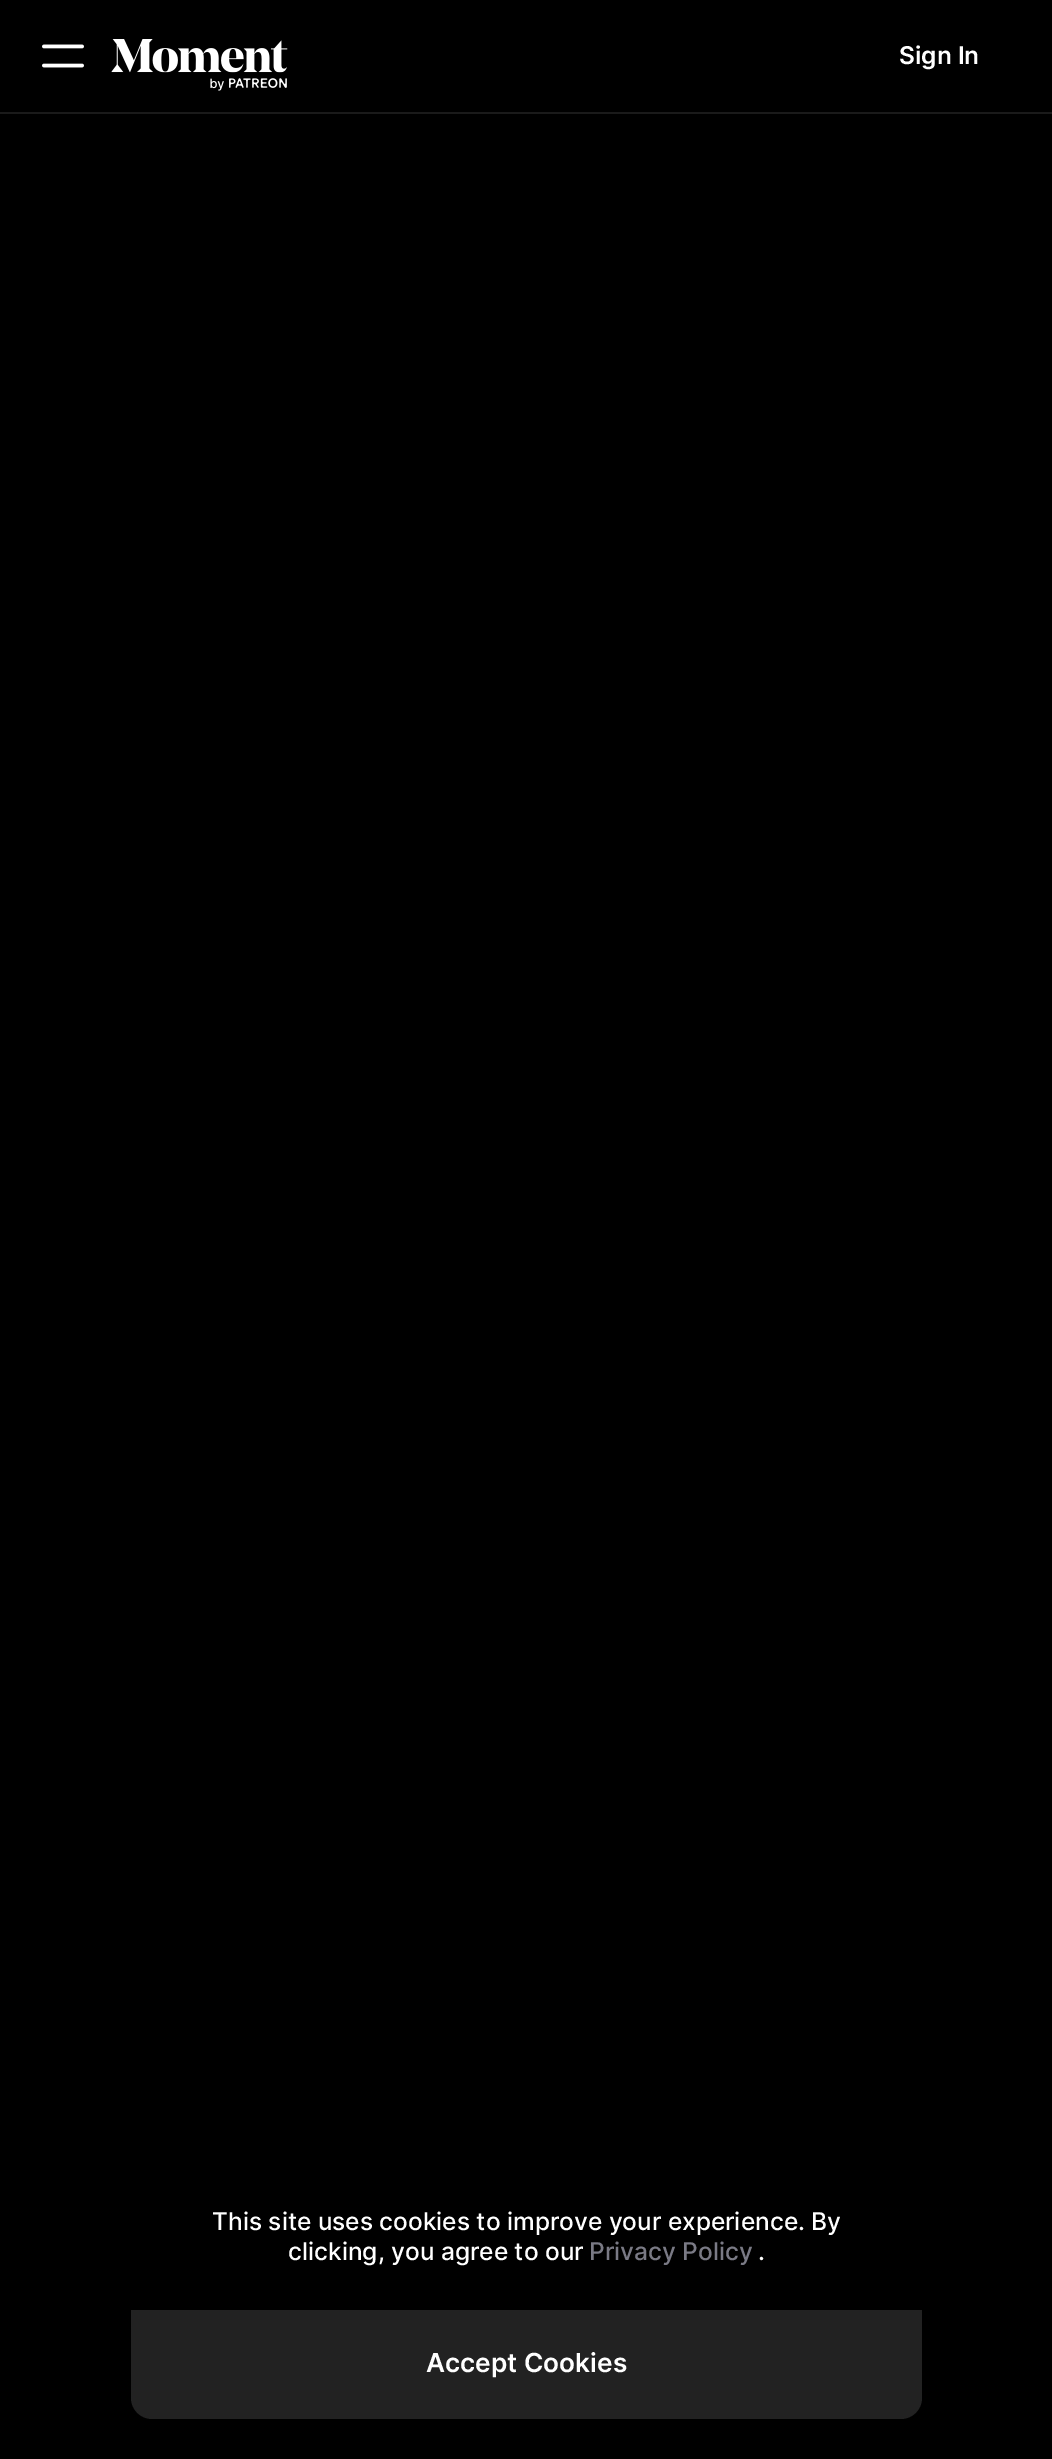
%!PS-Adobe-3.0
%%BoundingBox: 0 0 1052 2459
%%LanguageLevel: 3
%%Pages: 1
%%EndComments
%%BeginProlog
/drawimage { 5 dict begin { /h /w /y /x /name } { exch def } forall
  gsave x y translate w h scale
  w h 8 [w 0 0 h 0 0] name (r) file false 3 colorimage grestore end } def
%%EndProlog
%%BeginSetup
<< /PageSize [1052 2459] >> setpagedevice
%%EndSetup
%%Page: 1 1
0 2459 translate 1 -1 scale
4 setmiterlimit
0 setgray
0 0 1052 2459 rectfill
0.102 setgray
newpath 0 112 moveto 0 114 lineto 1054 114 lineto 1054 2 lineto 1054 112 lineto closepath fill
(images/1.raw) 42 44 42 24 drawimage
(images/2.raw) 111 39 177 52 drawimage
0.133 setgray
newpath 131 2310 moveto 922 2310 lineto 922 2398 lineto 922 2409.5 912.5 2419 901 2419 curveto 152 2419 lineto 140.5 2419 131 2409.5 131 2398 curveto closepath fill
/Inter-SemiBold [24.5 0 0 -24.5 0 0] selectfont
1 setgray
899 64 moveto (Sign In) show
/Inter-Medium [24.5 0 0 -24.5 0 0] selectfont
212 2230 moveto (This site uses cookies to improve your experience. By) show
288 2260 moveto (clicking, you agree to our) show
0.478 0.478 0.522 setrgbcolor
589 2260 moveto (Privacy Policy) show
1 setgray
758 2260 moveto (.) show
/Inter-SemiBold [26.25 0 0 -26.25 0 0] selectfont
426 2372 moveto (Accept Cookies) show
showpage
%%EOF
